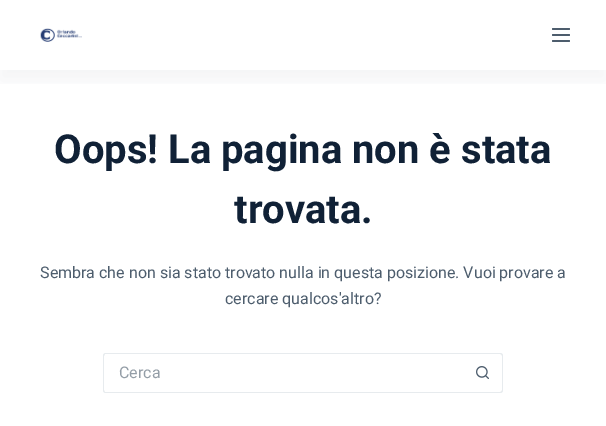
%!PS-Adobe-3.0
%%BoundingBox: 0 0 606 426
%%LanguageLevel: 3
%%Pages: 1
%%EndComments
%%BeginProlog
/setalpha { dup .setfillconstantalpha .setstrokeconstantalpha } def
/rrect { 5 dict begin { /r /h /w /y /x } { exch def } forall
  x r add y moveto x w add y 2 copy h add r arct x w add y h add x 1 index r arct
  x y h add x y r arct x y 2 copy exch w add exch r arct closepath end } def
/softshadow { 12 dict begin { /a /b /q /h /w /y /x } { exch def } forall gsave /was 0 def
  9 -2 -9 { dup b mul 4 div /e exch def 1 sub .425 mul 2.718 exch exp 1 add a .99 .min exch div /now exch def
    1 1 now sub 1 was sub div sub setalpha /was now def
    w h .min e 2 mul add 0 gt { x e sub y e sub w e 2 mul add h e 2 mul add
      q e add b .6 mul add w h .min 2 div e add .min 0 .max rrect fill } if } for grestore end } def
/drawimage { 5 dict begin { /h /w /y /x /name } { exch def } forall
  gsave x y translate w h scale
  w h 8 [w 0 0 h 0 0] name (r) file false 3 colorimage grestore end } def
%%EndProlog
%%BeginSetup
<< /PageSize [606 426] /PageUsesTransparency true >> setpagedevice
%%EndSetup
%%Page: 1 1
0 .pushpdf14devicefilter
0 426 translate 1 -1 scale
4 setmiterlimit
1 setgray
0 0 606 426 rectfill
gsave
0 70 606 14 rectclip
0.169 0.239 0.314 setrgbcolor
0 10 606 70 0 10 0.06 softshadow
grestore
(images/1.raw) 40 28 42 14 drawimage
0.302 0.365 0.427 setrgbcolor
552 28 18 2 1 rrect fill
552 34 18 2 1 rrect fill
552 40 18 2 1 rrect fill
0.906 0.922 0.933 setrgbcolor
newpath 106 353 moveto 463 353 lineto 463 393 lineto 106 393 lineto 104 393 103 392 103 390 curveto 103 356 lineto 103 354 104 353 106 353 curveto closepath 106 354 moveto 463 354 lineto 463 392 lineto 105 392 lineto 103 390 104 385 104 384 curveto 104 356 lineto 105 354 lineto closepath eofill
newpath 463 353 moveto 500 353 lineto 502 353 503 354 503 356 curveto 503 390 lineto 503 392 502 393 500 393 curveto 463 393 lineto closepath 463 354 moveto 500 354 lineto 501 354 502 355 502 356 curveto 502 390 lineto 502 391 501 392 500 392 curveto 463 392 lineto closepath eofill
(images/2.raw) 476 366 13 13 drawimage
/Roboto-Bold [40 0 0 -40 0 0] selectfont
0.063 0.129 0.212 setrgbcolor
54 163 moveto (Oops! La pagina non è stata) show
234 223 moveto (trovata.) show
/Roboto-Regular [16 0 0 -16 0 0] selectfont
0.302 0.365 0.427 setrgbcolor
40 278 moveto (Sembra che non sia stato trovato nulla in questa posizione. Vuoi provare a) show
225 304 moveto (cercare qualcos'altro?) show
0.58 0.62 0.655 setrgbcolor
119 378 moveto (Cerca) show
.poppdf14devicefilter showpage
%%EOF
